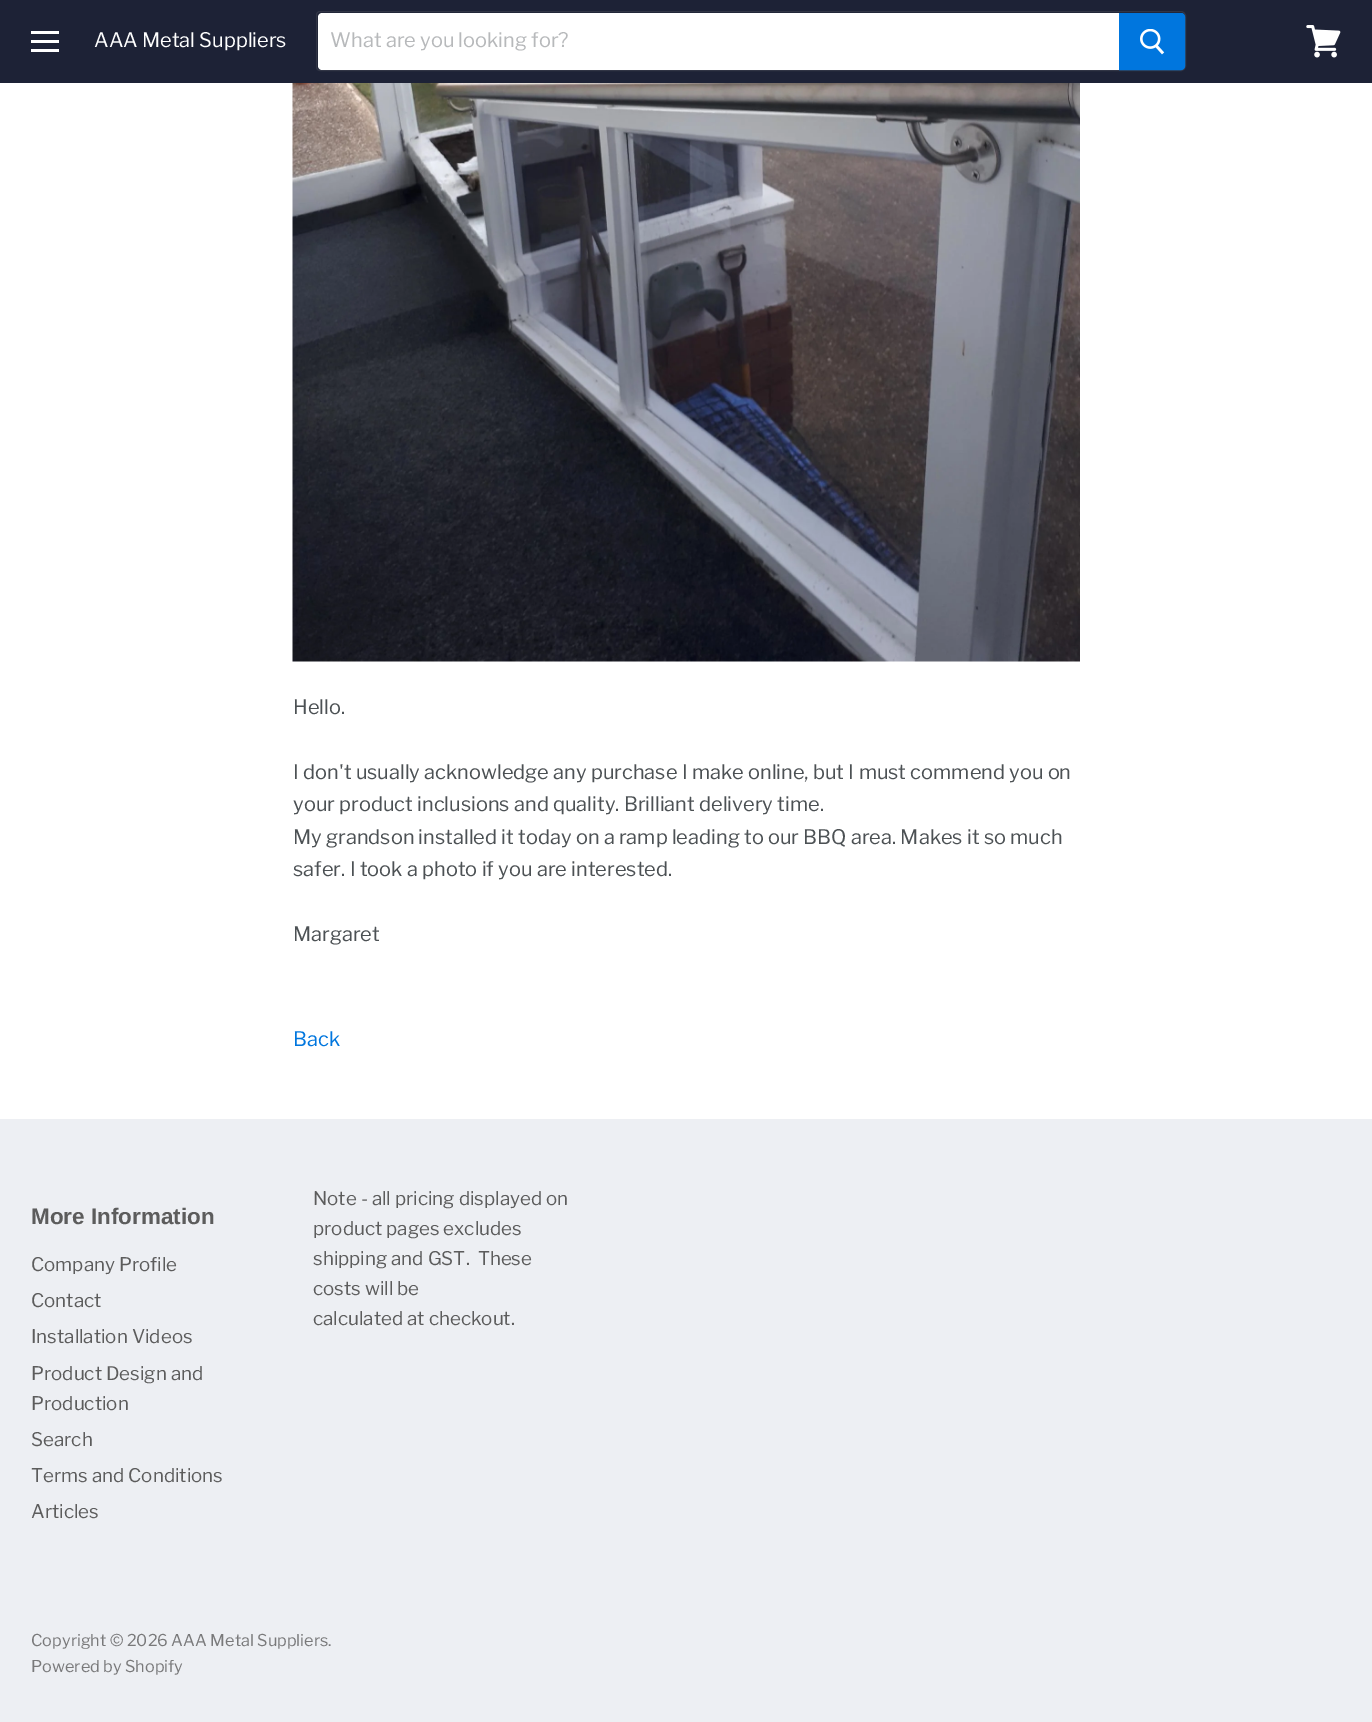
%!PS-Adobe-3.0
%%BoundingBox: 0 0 1372 1722
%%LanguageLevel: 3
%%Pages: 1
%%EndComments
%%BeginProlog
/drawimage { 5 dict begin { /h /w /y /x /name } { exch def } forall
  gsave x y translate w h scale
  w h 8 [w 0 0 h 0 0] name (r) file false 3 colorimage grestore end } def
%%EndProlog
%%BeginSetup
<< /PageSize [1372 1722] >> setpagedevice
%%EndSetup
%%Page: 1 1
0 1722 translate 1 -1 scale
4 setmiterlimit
1 setgray
0 0 1372 1722 rectfill
0.114 0.133 0.212 setrgbcolor
0 0 1372 83 rectfill
1 setgray
31 31 28 3 rectfill
31 40 28 3 rectfill
31 49 28 3 rectfill
0.192 0.208 0.271 setrgbcolor
newpath 320 11.5 moveto 1181 11.5 lineto 1183.5 11.5 1185.5 13.5 1185.5 16 curveto 1185.5 66 lineto 1185.5 68.5 1183.5 70.5 1181 70.5 curveto 320 70.5 lineto 318 70.5 316.5 69 316.5 67 curveto 316.5 15 lineto 316.5 13 318 11.5 320 11.5 curveto closepath stroke
1 setgray
newpath 322 13 moveto 1119 13 lineto 1119 70 lineto 322 70 lineto 320 70 318 68 318 66 curveto 318 17 lineto 318 15 320 13 322 13 curveto closepath fill
0 0.463 0.871 setrgbcolor
newpath 1119.5 13.5 moveto 1181 13.5 lineto 1183 13.5 1184.5 15 1184.5 17 curveto 1184.5 66 lineto 1184.5 68 1183 69.5 1181 69.5 curveto 1119.5 69.5 lineto closepath gsave fill grestore
stroke
(images/1.raw) 1140 29 25 26 drawimage
(images/2.raw) 1306 25 35 33 drawimage
(images/3.raw) 292 83 788 579 drawimage
0.929 0.937 0.953 setrgbcolor
0 1119 1372 603 rectfill
/LibreFranklin-Regular [20 0 0 -20 0 0] selectfont
1 setgray
94 47 moveto (AAA Metal Suppliers) show
0.718 0.725 0.733 setrgbcolor
330 47 moveto (What are you looking for?) show
0.298 0.318 0.329 setrgbcolor
293 714 moveto (Hello.) show
293 779 moveto (I don't usually acknowledge any purchase I make online, but I must commend you on) show
293 811 moveto (your product inclusions and quality. Brilliant delivery time.) show
293 844 moveto (My grandson installed it today on a ramp leading to our BBQ area. Makes it so much) show
293 876 moveto (safer. I took a photo if you are interested.) show
293 941 moveto (Margaret) show
0 0.463 0.871 setrgbcolor
293 1046 moveto (Back) show
/Arimo-Bold [22.5 0 0 -22.5 0 0] selectfont
0.361 setgray
31 1224 moveto (More Information) show
/LibreFranklin-Regular [18.75 0 0 -18.75 0 0] selectfont
31 1271 moveto (Company Profile) show
31 1307 moveto (Contact) show
31 1343 moveto (Installation Videos) show
31 1380 moveto (Product Design and) show
31 1410 moveto (Production) show
31 1446 moveto (Search) show
31 1482 moveto (Terms and Conditions) show
31 1518 moveto (Articles) show
313 1205 moveto (Note - all pricing displayed on) show
313 1235 moveto (product pages excludes) show
313 1265 moveto (shipping and GST.  These) show
313 1295 moveto (costs will be) show
313 1325 moveto (calculated at checkout.) show
/LibreFranklin-Regular [16.25 0 0 -16.25 0 0] selectfont
0.475 0.475 0.478 setrgbcolor
31 1646 moveto (Copyright © 2026 AAA Metal Suppliers.) show
31 1672 moveto (Powered by Shopify) show
showpage
%%EOF
